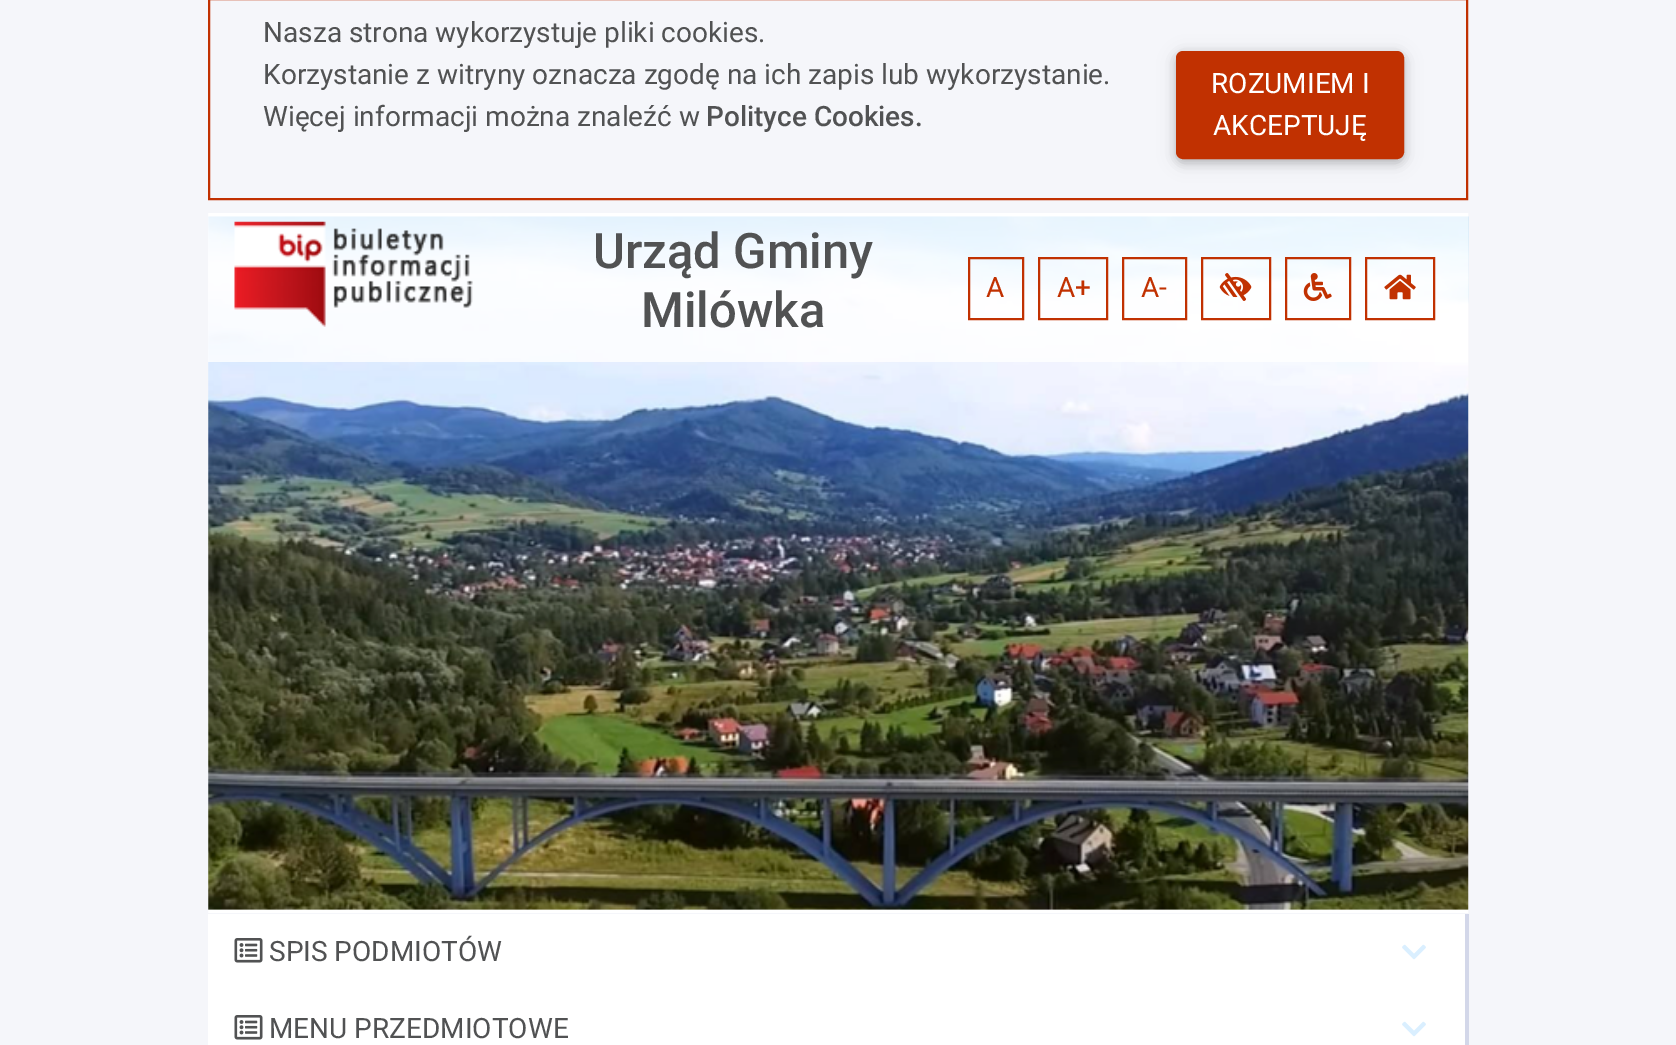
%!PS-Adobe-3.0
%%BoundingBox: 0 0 1676 1045
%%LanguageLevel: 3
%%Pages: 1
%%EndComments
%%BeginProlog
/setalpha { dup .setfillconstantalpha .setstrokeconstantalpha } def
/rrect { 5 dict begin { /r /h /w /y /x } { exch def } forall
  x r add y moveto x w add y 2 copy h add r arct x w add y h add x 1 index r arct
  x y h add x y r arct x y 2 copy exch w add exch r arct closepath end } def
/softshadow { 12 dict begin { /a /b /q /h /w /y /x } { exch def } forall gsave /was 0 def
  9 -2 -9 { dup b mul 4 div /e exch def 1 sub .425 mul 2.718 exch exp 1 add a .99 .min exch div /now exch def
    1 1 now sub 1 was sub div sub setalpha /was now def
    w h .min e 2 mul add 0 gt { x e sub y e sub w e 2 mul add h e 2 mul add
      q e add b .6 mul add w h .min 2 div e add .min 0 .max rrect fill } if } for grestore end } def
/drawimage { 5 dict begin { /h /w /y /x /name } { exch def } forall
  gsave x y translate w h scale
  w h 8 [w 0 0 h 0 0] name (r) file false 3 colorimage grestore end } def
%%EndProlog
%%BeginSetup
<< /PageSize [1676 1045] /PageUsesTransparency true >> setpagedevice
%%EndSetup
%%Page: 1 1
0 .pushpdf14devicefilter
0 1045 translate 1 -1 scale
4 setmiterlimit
0.961 0.965 0.98 setrgbcolor
0 0 1676 1045 rectfill
0.757 0.192 0.004 setrgbcolor
2 setlinewidth
209 -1 1258 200 rectstroke
0 setgray
1176 54 228 109 7 9 0.12 softshadow
1176 54 228 109 7 4.5 0.16 softshadow
0.757 0.192 0.004 setrgbcolor
1177 52 226 106 6 rrect gsave fill grestore
stroke
(images/1.raw) 208 213 1261 700 drawimage
0.8 setalpha
1 setgray
208 216 1260 146 rectfill
1 setalpha
(images/2.raw) 234 221 239 106 drawimage
0.757 0.192 0.004 setrgbcolor
969 258 54 61 rectstroke
1039 258 68 61 rectstroke
1123 258 63 61 rectstroke
1202 258 68 61 rectstroke
(images/3.raw) 1219 273 33 28 drawimage
1286 258 64 61 rectstroke
(images/4.raw) 1303 273 29 28 drawimage
1366 258 68 61 rectstroke
(images/5.raw) 1384 274 32 26 drawimage
0.827 0.843 0.914 setrgbcolor
1465 914 4 131 rectfill
1 setgray
208 914 1257 131 rectfill
(images/6.raw) 234 938 29 25 drawimage
(images/7.raw) 1402 944 24 16 drawimage
(images/6.raw) 234 1015 29 25 drawimage
(images/7.raw) 1402 1021 24 16 drawimage
/Roboto-Regular [28 0 0 -28 0 0] selectfont
0.318 0.322 0.325 setrgbcolor
263 42 moveto (Nasza strona wykorzystuje pliki cookies.) show
263 84 moveto (Korzystanie z witryny oznacza zgodę na ich zapis lub wykorzystanie.) show
263 126 moveto (Więcej informacji można znaleźć w) show
/Roboto-Medium [28 0 0 -28 0 0] selectfont
706 126 moveto (Polityce Cookies.) show
/Roboto-Regular [28 0 0 -28 0 0] selectfont
1 setgray
1211 93 moveto (ROZUMIEM I) show
1213 135 moveto (AKCEPTUJĘ) show
/Roboto-Medium [49 0 0 -49 0 0] selectfont
0.318 0.322 0.325 setrgbcolor
593 268 moveto (Urząd Gminy) show
641 327 moveto (Milówka) show
/Roboto-Regular [28 0 0 -28 0 0] selectfont
0.757 0.192 0.004 setrgbcolor
986 297 moveto (A) show
1057 297 moveto (A+) show
1141 297 moveto (A-) show
0.318 0.322 0.325 setrgbcolor
269 961 moveto (SPIS PODMIOTÓW) show
269 1038 moveto (MENU PRZEDMIOTOWE) show
.poppdf14devicefilter showpage
%%EOF
